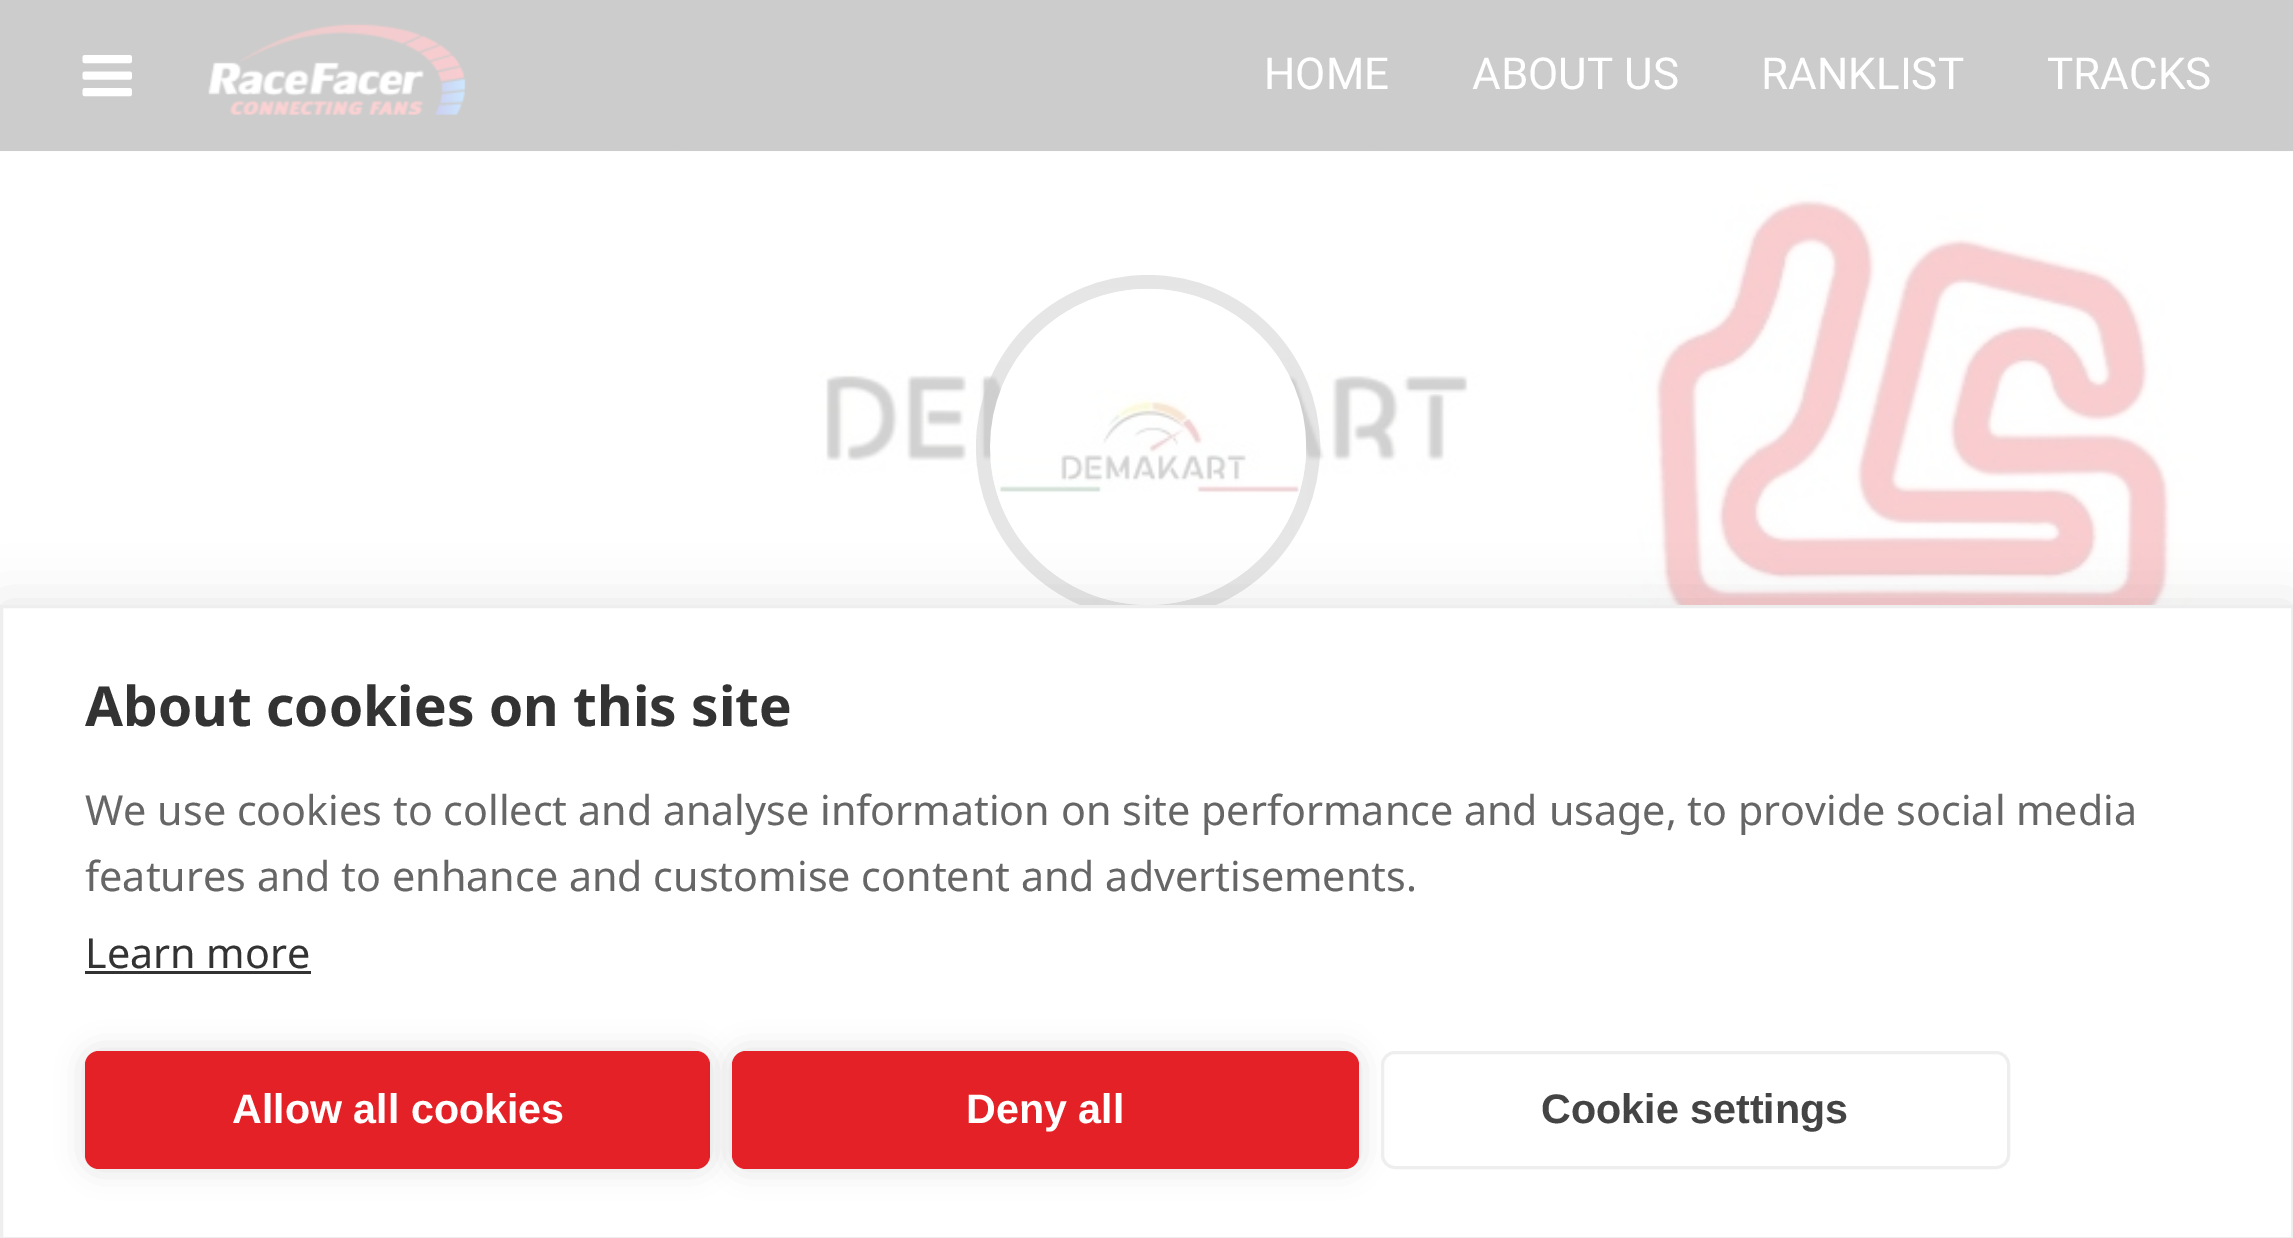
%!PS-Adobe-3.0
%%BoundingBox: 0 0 2293 1238
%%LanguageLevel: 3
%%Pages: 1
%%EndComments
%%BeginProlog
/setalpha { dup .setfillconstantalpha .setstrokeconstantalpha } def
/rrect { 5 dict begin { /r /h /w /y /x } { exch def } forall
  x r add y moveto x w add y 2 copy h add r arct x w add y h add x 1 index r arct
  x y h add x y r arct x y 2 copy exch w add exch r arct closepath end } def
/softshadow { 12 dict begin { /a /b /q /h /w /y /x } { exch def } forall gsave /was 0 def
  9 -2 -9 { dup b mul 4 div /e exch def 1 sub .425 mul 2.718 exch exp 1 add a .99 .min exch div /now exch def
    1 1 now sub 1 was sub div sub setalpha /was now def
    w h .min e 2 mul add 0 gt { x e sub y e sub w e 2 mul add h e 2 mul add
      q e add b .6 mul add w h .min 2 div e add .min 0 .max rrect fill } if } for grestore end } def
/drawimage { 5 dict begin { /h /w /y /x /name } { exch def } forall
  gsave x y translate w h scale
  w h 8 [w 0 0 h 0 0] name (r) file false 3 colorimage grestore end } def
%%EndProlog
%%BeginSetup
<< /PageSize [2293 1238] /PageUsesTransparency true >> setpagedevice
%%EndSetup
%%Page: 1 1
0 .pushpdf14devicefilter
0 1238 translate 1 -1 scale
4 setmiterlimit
1 setgray
0 0 2293 1238 rectfill
0.8 setgray
0 0 2293 151 rectfill
(images/1.raw) 82 55 50 42 drawimage
(images/2.raw) 208 23 258 92 drawimage
(images/3.raw) 0 151 2293 1 drawimage
(images/4.raw) 0 151 2293 454 drawimage
0.5 setalpha
14 setlinewidth
newpath 1148 447 165 0 360 arc closepath stroke
1 setalpha
(images/5.raw) 990 288 317 317 drawimage
0 setgray
0 605 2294 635 0 27.5 0.1 softshadow
1 setgray
newpath 1.5 606.5 moveto 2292.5 606.5 lineto 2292.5 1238.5 lineto 1.5 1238.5 lineto closepath gsave fill grestore
0.933 setgray
3 setlinewidth
stroke
0.2 setgray
85 971 226 3 rectfill
0 setgray
85 1051 625 118 14 14 0.12 softshadow
0.894 0.129 0.153 setrgbcolor
85 1051 625 118 14 rrect fill
0 setgray
732 1051 627 118 14 14 0.12 softshadow
0.894 0.129 0.153 setrgbcolor
732 1051 627 118 14 rrect fill
0.933 setgray
1382.5 1052.5 626 115 12.5 rrect stroke
/Roboto-Regular [44 0 0 -44 0 0] selectfont
1 setgray
1264 89 moveto (HOME) show
1472 89 moveto (ABOUT US) show
1761 89 moveto (RANKLIST) show
2047 89 moveto (TRACKS) show
/NotoSans-Bold [55 0 0 -55 0 0] selectfont
0.2 setgray
85 726 moveto (About cookies on this site) show
/NotoSans-Regular [41.25 0 0 -41.25 0 0] selectfont
0.4 setgray
85 825 moveto (We use cookies to collect and analyse information on site performance and usage, to provide social media) show
85 891 moveto (features and to enhance and customise content and advertisements.) show
0.2 setgray
85 968 moveto (Learn more) show
/LiberationSans-Bold [41.25 0 0 -41.25 0 0] selectfont
1 setgray
232 1123 moveto (Allow all cookies) show
966 1123 moveto (Deny all) show
0.267 setgray
1541 1123 moveto (Cookie settings) show
.poppdf14devicefilter showpage
%%EOF
